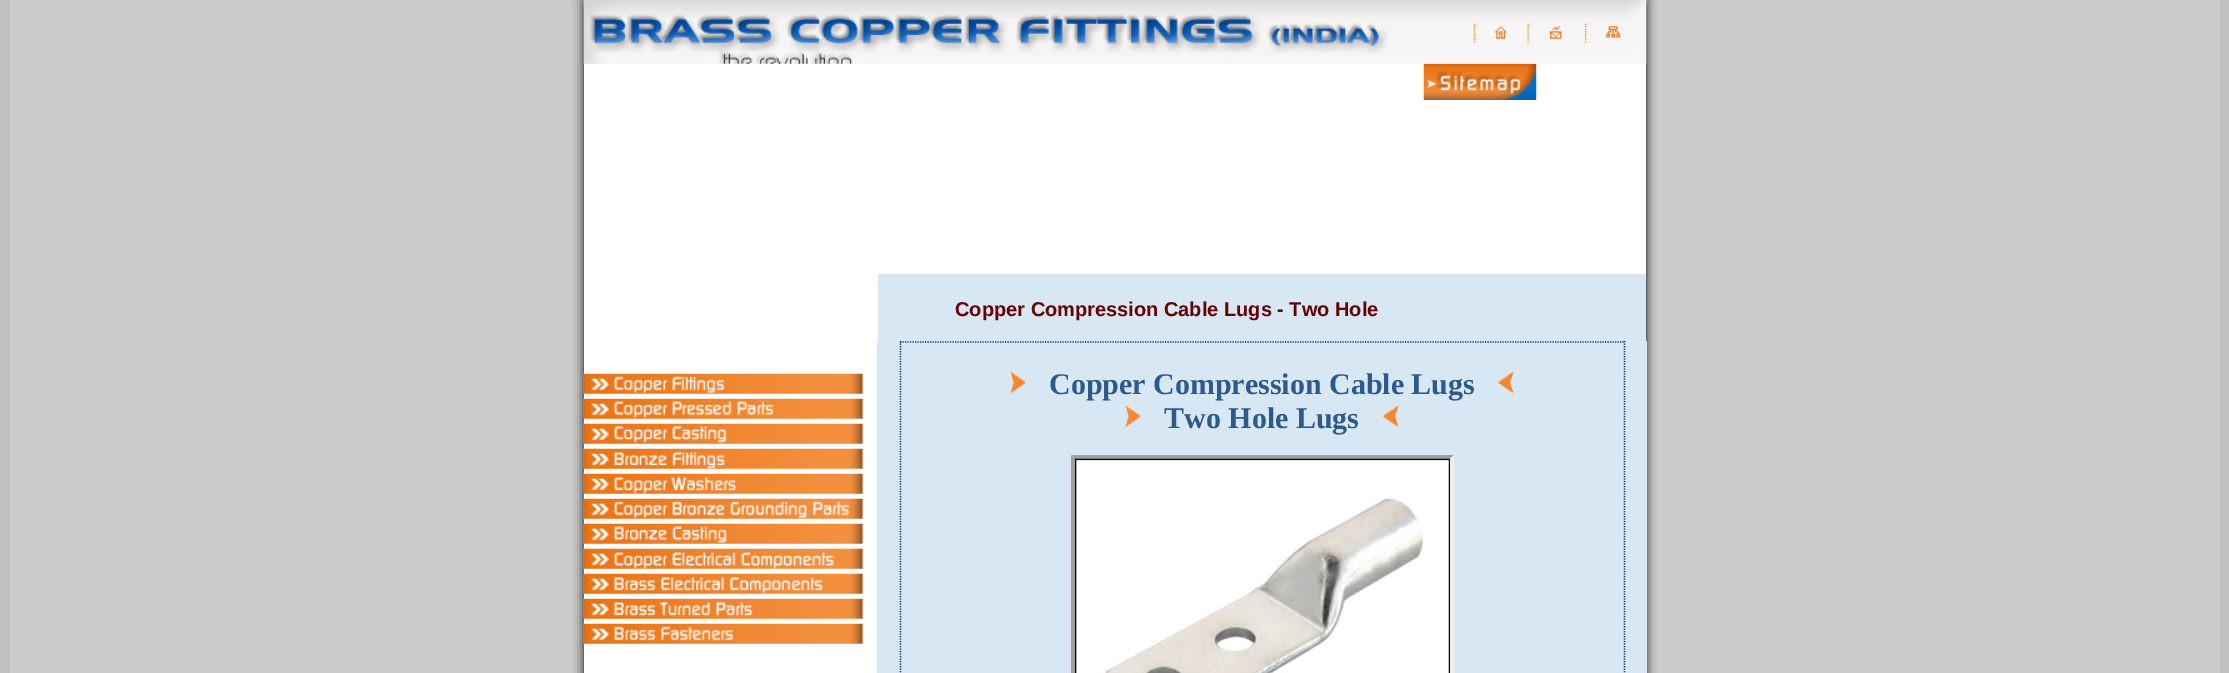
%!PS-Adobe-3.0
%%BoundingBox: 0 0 2229 673
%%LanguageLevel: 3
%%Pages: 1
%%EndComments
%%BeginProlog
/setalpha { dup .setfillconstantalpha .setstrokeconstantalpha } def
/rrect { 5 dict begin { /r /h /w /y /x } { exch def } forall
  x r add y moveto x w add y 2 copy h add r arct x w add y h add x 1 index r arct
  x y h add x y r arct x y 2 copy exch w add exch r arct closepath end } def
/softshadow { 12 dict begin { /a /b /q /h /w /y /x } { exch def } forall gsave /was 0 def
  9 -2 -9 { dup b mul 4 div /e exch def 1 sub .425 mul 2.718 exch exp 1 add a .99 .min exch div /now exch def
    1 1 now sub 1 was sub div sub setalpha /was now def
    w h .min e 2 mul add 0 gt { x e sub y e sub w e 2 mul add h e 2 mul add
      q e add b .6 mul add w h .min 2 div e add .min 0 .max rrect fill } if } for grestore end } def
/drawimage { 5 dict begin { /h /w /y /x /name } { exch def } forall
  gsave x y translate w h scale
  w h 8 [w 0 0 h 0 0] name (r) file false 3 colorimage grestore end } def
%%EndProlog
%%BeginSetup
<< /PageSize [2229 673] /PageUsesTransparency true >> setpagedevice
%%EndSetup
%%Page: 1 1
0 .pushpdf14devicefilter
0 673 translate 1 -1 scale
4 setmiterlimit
0.753 setgray
0 0 2229 673 rectfill
0.8 setgray
10 0 2210 673 rectfill
0 setgray
584 0 1062 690 0 5.5 1 softshadow
1 setgray
584 63 1062 610 rectfill
(images/2.raw) 1423 63 114 37 drawimage
(images/1.raw) 583 0 1064 64 drawimage
(images/3.raw) 583 373 281 21 drawimage
(images/4.raw) 583 398 281 21 drawimage
(images/5.raw) 583 423 281 21 drawimage
(images/6.raw) 583 448 281 21 drawimage
(images/7.raw) 583 473 281 21 drawimage
(images/8.raw) 583 498 281 21 drawimage
(images/9.raw) 583 523 281 21 drawimage
(images/10.raw) 583 548 281 21 drawimage
(images/11.raw) 583 573 281 21 drawimage
(images/12.raw) 583 598 281 21 drawimage
(images/13.raw) 583 623 281 21 drawimage
0.843 0.906 0.953 setrgbcolor
878 274 768 67 rectfill
0.843 0.906 0.957 setrgbcolor
877 341 770 332 rectfill
0 0.2 0.4 setrgbcolor
1.2 setlinewidth
[1.25 1.25] 0 setdash
newpath 900 342 moveto 1625 342 lineto stroke
newpath 1624.5 341 moveto 1624.5 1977.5 lineto stroke
newpath 900.5 341 moveto 900.5 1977.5 lineto stroke
(images/14.raw) 1010 371 17 23 drawimage
(images/15.raw) 1497 371 17 23 drawimage
(images/16.raw) 1125 405 17 23 drawimage
(images/17.raw) 1382 405 17 23 drawimage
0.624 setgray
newpath 1071 455 moveto 1454 455 lineto 1450 459 lineto 1075 459 lineto closepath fill
newpath 1071 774 moveto 1071 455 lineto 1075 459 lineto 1075 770 lineto closepath fill
(images/18.raw) 1075 458 375 215 drawimage
0.933 setgray
newpath 1454 455 moveto 1454 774 lineto 1450 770 lineto 1450 459 lineto closepath fill
/LiberationSans-Bold [20 0 0 -20 0 0] selectfont
0.4 0 0 setrgbcolor
955 316 moveto (Copper Compression Cable Lugs - Two Hole) show
/LiberationSerif-Bold [30 0 0 -30 0 0] selectfont
0.176 0.349 0.545 setrgbcolor
1049 394 moveto (Copper Compression Cable Lugs) show
1164 428 moveto (Two Hole Lugs) show
.poppdf14devicefilter showpage
%%EOF
